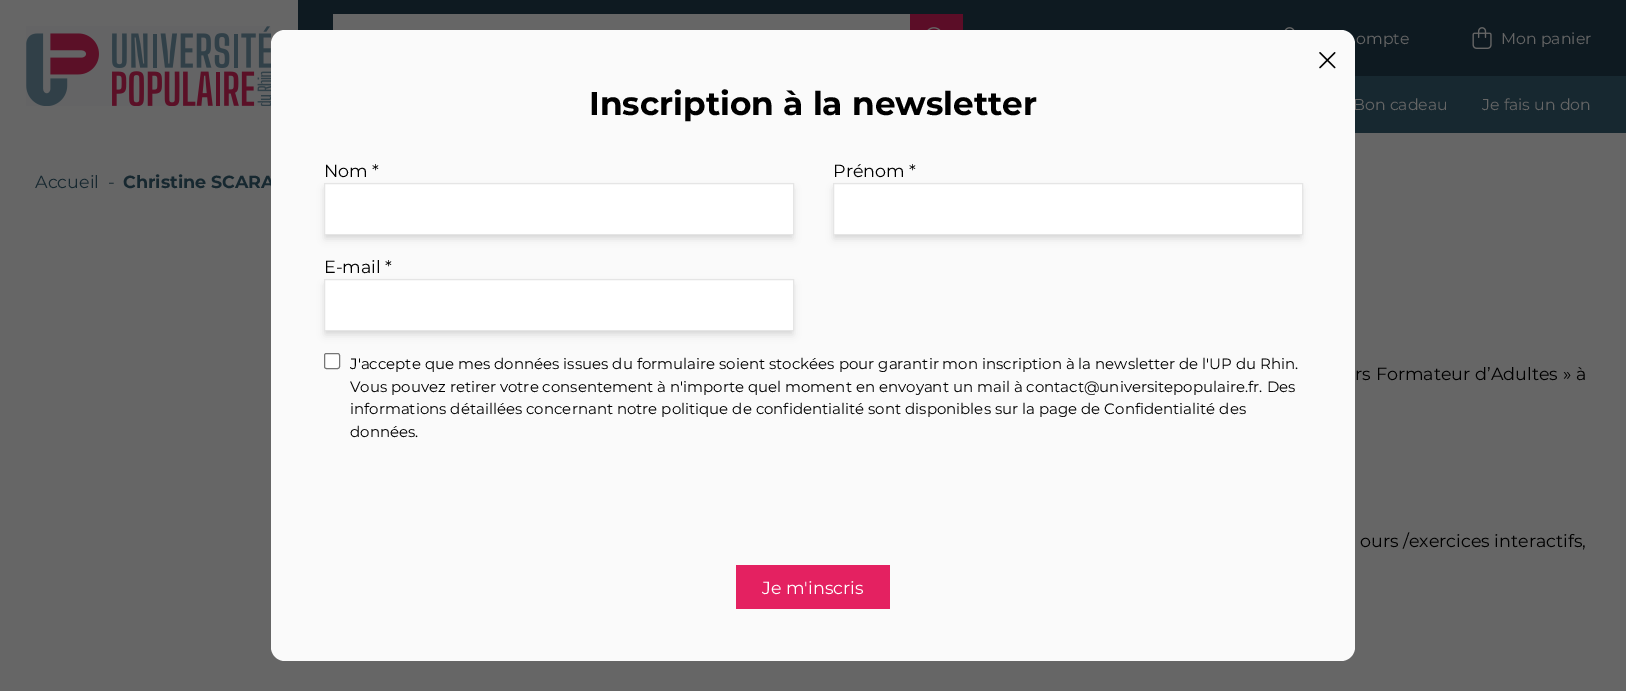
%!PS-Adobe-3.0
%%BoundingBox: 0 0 1626 691
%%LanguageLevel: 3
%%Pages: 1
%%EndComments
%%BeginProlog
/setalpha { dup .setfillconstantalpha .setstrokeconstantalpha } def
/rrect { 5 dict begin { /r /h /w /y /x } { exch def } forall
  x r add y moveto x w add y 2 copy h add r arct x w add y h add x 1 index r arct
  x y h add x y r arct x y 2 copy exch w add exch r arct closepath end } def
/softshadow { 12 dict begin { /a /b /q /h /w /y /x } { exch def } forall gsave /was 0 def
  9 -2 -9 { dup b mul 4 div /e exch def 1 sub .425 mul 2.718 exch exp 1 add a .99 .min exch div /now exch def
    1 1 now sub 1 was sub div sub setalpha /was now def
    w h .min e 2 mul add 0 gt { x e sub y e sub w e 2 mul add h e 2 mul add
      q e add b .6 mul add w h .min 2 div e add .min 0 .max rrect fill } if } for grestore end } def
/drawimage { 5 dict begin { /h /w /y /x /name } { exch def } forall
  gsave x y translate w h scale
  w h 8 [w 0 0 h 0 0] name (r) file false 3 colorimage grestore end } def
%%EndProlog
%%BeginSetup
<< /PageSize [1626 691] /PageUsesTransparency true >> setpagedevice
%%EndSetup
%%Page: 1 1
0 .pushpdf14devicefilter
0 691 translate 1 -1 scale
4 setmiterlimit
0.4 setgray
0 0 1626 691 rectfill
(images/1.raw) 26 26 245 80 drawimage
0.055 0.102 0.129 setrgbcolor
298 0 1328 76 rectfill
0.4 setgray
333 14 577 16 rectfill
0.357 0.051 0.153 setrgbcolor
910 14 53 16 rectfill
(images/2.raw) 927 27 14 3 drawimage
(images/3.raw) 1284 27 11 3 drawimage
(images/4.raw) 1472 27 20 22 drawimage
0.09 0.157 0.188 setrgbcolor
1355 76 271 57 rectfill
/Montserrat-Regular [15.75 0 0 -15.75 0 0] selectfont
0.4 setgray
1356 44 moveto (ompte) show
1501 44 moveto (Mon panier) show
1353 110 moveto (Bon cadeau) show
1482 110 moveto (Je fais un don) show
/Montserrat-Regular [17.5 0 0 -17.5 0 0] selectfont
0.09 0.157 0.188 setrgbcolor
35 188 moveto (Accueil) show
108 188 moveto (-) show
/Montserrat-Bold [17.5 0 0 -17.5 0 0] selectfont
123 188 moveto (Christine SCARA) show
0.98 setgray
271 30 1084 631 14 rrect fill
0.894 0.129 0.38 setrgbcolor
736 565 154 44 rectfill
/Montserrat-Regular [17.5 0 0 -17.5 0 0] selectfont
1 setgray
762 594 moveto (Je m'inscris) show
(images/5.raw) 1319 52 17 17 drawimage
/Montserrat-Regular [15 0 0 -15 0 0] selectfont
0 setgray
350 437 moveto (données.) show
350 414 moveto (informations détaillées concernant notre politique de confidentialité sont disponibles sur la page de Confidentialité des) show
350 392 moveto (Vous pouvez retirer votre consentement à n'importe quel moment en envoyant un mail à contact@universitepopulaire.fr. Des) show
350 369 moveto (J'accepte que mes données issues du formulaire soient stockées pour garantir mon inscription à la newsletter de l'UP du Rhin.) show
1 setgray
324.5 353.5 15 15 2 rrect gsave fill grestore
0.463 setgray
stroke
0 setgray
325 285 468 50 0 4 0.1 softshadow
326 284 465 47 0 2.5 0.1 softshadow
1 setgray
newpath 324.5 279.5 moveto 793.5 279.5 lineto 793.5 330.5 lineto 324.5 330.5 lineto closepath gsave fill grestore
0.898 setgray
stroke
/Montserrat-Regular [17.5 0 0 -17.5 0 0] selectfont
0 setgray
324 273 moveto (E-mail *) show
834 189 467 50 0 4 0.1 softshadow
835 188 465 47 0 2.5 0.1 softshadow
1 setgray
newpath 833.5 183.5 moveto 1302.5 183.5 lineto 1302.5 234.5 lineto 833.5 234.5 lineto closepath gsave fill grestore
0.898 setgray
stroke
0 setgray
833 177 moveto (Prénom *) show
325 189 468 50 0 4 0.1 softshadow
326 188 465 47 0 2.5 0.1 softshadow
1 setgray
newpath 324.5 183.5 moveto 793.5 183.5 lineto 793.5 234.5 lineto 324.5 234.5 lineto closepath gsave fill grestore
0.898 setgray
stroke
0 setgray
324 177 moveto (Nom *) show
/Montserrat-Bold [32.75 0 0 -32.75 0 0] selectfont
589 115 moveto (Inscription à la newsletter) show
/Montserrat-Regular [17.5 0 0 -17.5 0 0] selectfont
1355 380 moveto 0.5 0 32 (rs Formateur d’Adultes » à) widthshow
1360 547 moveto (ours /exercices interactifs,) show
.poppdf14devicefilter showpage
%%EOF
